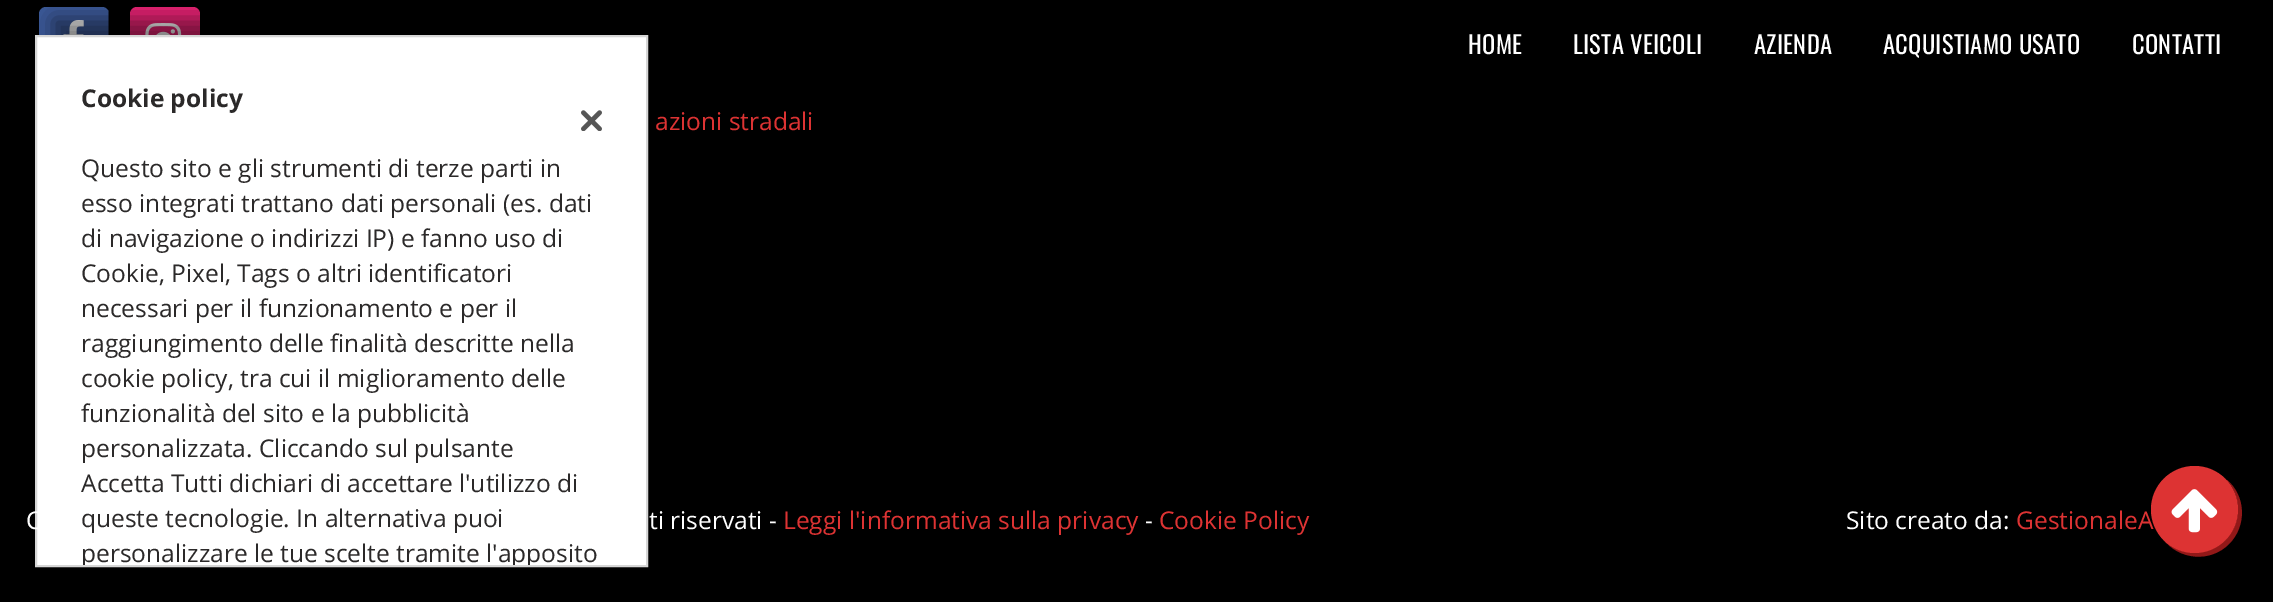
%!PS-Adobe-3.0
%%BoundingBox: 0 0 2273 602
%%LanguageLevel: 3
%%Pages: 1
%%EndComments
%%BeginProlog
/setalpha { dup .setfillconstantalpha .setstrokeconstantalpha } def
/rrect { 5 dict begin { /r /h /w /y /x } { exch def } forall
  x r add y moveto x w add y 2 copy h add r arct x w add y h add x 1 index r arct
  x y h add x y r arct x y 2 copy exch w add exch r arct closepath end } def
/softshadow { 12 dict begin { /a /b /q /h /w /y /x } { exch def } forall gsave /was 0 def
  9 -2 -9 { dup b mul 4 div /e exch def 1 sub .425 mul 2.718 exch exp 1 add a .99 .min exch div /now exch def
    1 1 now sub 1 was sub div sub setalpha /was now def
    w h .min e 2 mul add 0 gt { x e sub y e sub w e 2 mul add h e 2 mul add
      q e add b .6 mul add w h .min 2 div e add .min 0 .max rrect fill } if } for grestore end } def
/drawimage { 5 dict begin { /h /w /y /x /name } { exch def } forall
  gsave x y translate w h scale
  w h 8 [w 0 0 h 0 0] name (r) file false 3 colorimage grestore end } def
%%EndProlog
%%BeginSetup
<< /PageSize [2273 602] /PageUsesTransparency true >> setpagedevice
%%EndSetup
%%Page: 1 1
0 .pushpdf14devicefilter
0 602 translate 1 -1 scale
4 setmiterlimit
0 setgray
0 0 2273 602 rectfill
0.231 0.349 0.596 setrgbcolor
39 7 70 74 7 rrect fill
0.118 0.18 0.31 setrgbcolor
newpath 39 70 moveto 39 74 lineto 39 78 42 81 46 81 curveto 102 81 lineto 106 81 109 78 109 74 curveto 109 14 lineto 109 13 109 11 108 10 curveto 108 66 lineto 108 70 105 74 102 74 curveto 46 74 lineto 43 74 40 72 39 70 curveto closepath fill
(images/1.raw) 63 20 21 15 drawimage
0.918 0.137 0.455 setrgbcolor
130 7 70 74 7 rrect fill
(images/2.raw) 145 23 37 12 drawimage
0 setgray
53 18 612 532 0 10.5 0.5 softshadow
1 setgray
newpath 36 36 moveto 647 36 lineto 647 566 lineto 36 566 lineto closepath gsave fill grestore
0.839 setgray
2 setlinewidth
stroke
(images/3.raw) 581 110 21 21 drawimage
0.573 0.094 0.094 setrgbcolor
newpath 2163 539 moveto 2179 560 2210 563 2229 544 curveto 2247 526 2246 496 2227 480 curveto 2242 497 2242 524 2225 540 curveto 2208 557 2179 557 2163 539 curveto closepath fill
0.867 0.2 0.2 setrgbcolor
newpath 2194.5 509.5 43.5 0 360 arc closepath fill
(images/4.raw) 2171 489 47 44 drawimage
/Oswald-Regular [24.5 0 0 -24.5 0 0] selectfont
1 setgray
1468 54 moveto 0.3 0 (HOME) ashow
1573 54 moveto 0.3 0 (LISTA VEICOLI) ashow
1754 54 moveto 0.3 0 (AZIENDA) ashow
1883 54 moveto 0.3 0 (ACQUISTIAMO USATO) ashow
2132 54 moveto 0.3 0 (CONTATTI) ashow
/OpenSans-Bold [24.5 0 0 -24.5 0 0] selectfont
0.169 0.161 0.161 setrgbcolor
81 107 moveto (Cookie policy) show
/OpenSans-Regular [24.5 0 0 -24.5 0 0] selectfont
81 177 moveto (Questo sito e gli strumenti di terze parti in) show
81 212 moveto (esso integrati trattano dati personali \(es. dati) show
81 247 moveto (di navigazione o indirizzi IP\) e fanno uso di) show
81 282 moveto (Cookie, Pixel, Tags o altri identificatori) show
81 317 moveto (necessari per il funzionamento e per il) show
81 352 moveto (raggiungimento delle finalità descritte nella) show
81 387 moveto (cookie policy, tra cui il miglioramento delle) show
81 422 moveto (funzionalità del sito e la pubblicità) show
81 457 moveto (personalizzata. Cliccando sul pulsante) show
81 492 moveto (Accetta Tutti dichiari di accettare l'utilizzo di) show
81 527 moveto (queste tecnologie. In alternativa puoi) show
gsave
37 37 609 528 rectclip
81 562 moveto (personalizzare le tue scelte tramite l'apposito) show
grestore
0.867 0.2 0.2 setrgbcolor
655 130 moveto (azioni stradali) show
1 setgray
26 529 moveto (C) show
649 529 moveto (ti riservati -) show
0.867 0.2 0.2 setrgbcolor
783 529 moveto (Leggi l'informativa sulla privacy) show
1 setgray
1145 529 moveto (-) show
0.867 0.2 0.2 setrgbcolor
1159 529 moveto (Cookie Policy) show
1 setgray
1846 529 moveto (Sito creato da:) show
0.867 0.2 0.2 setrgbcolor
2016 529 moveto (GestionaleA) show
.poppdf14devicefilter showpage
%%EOF
